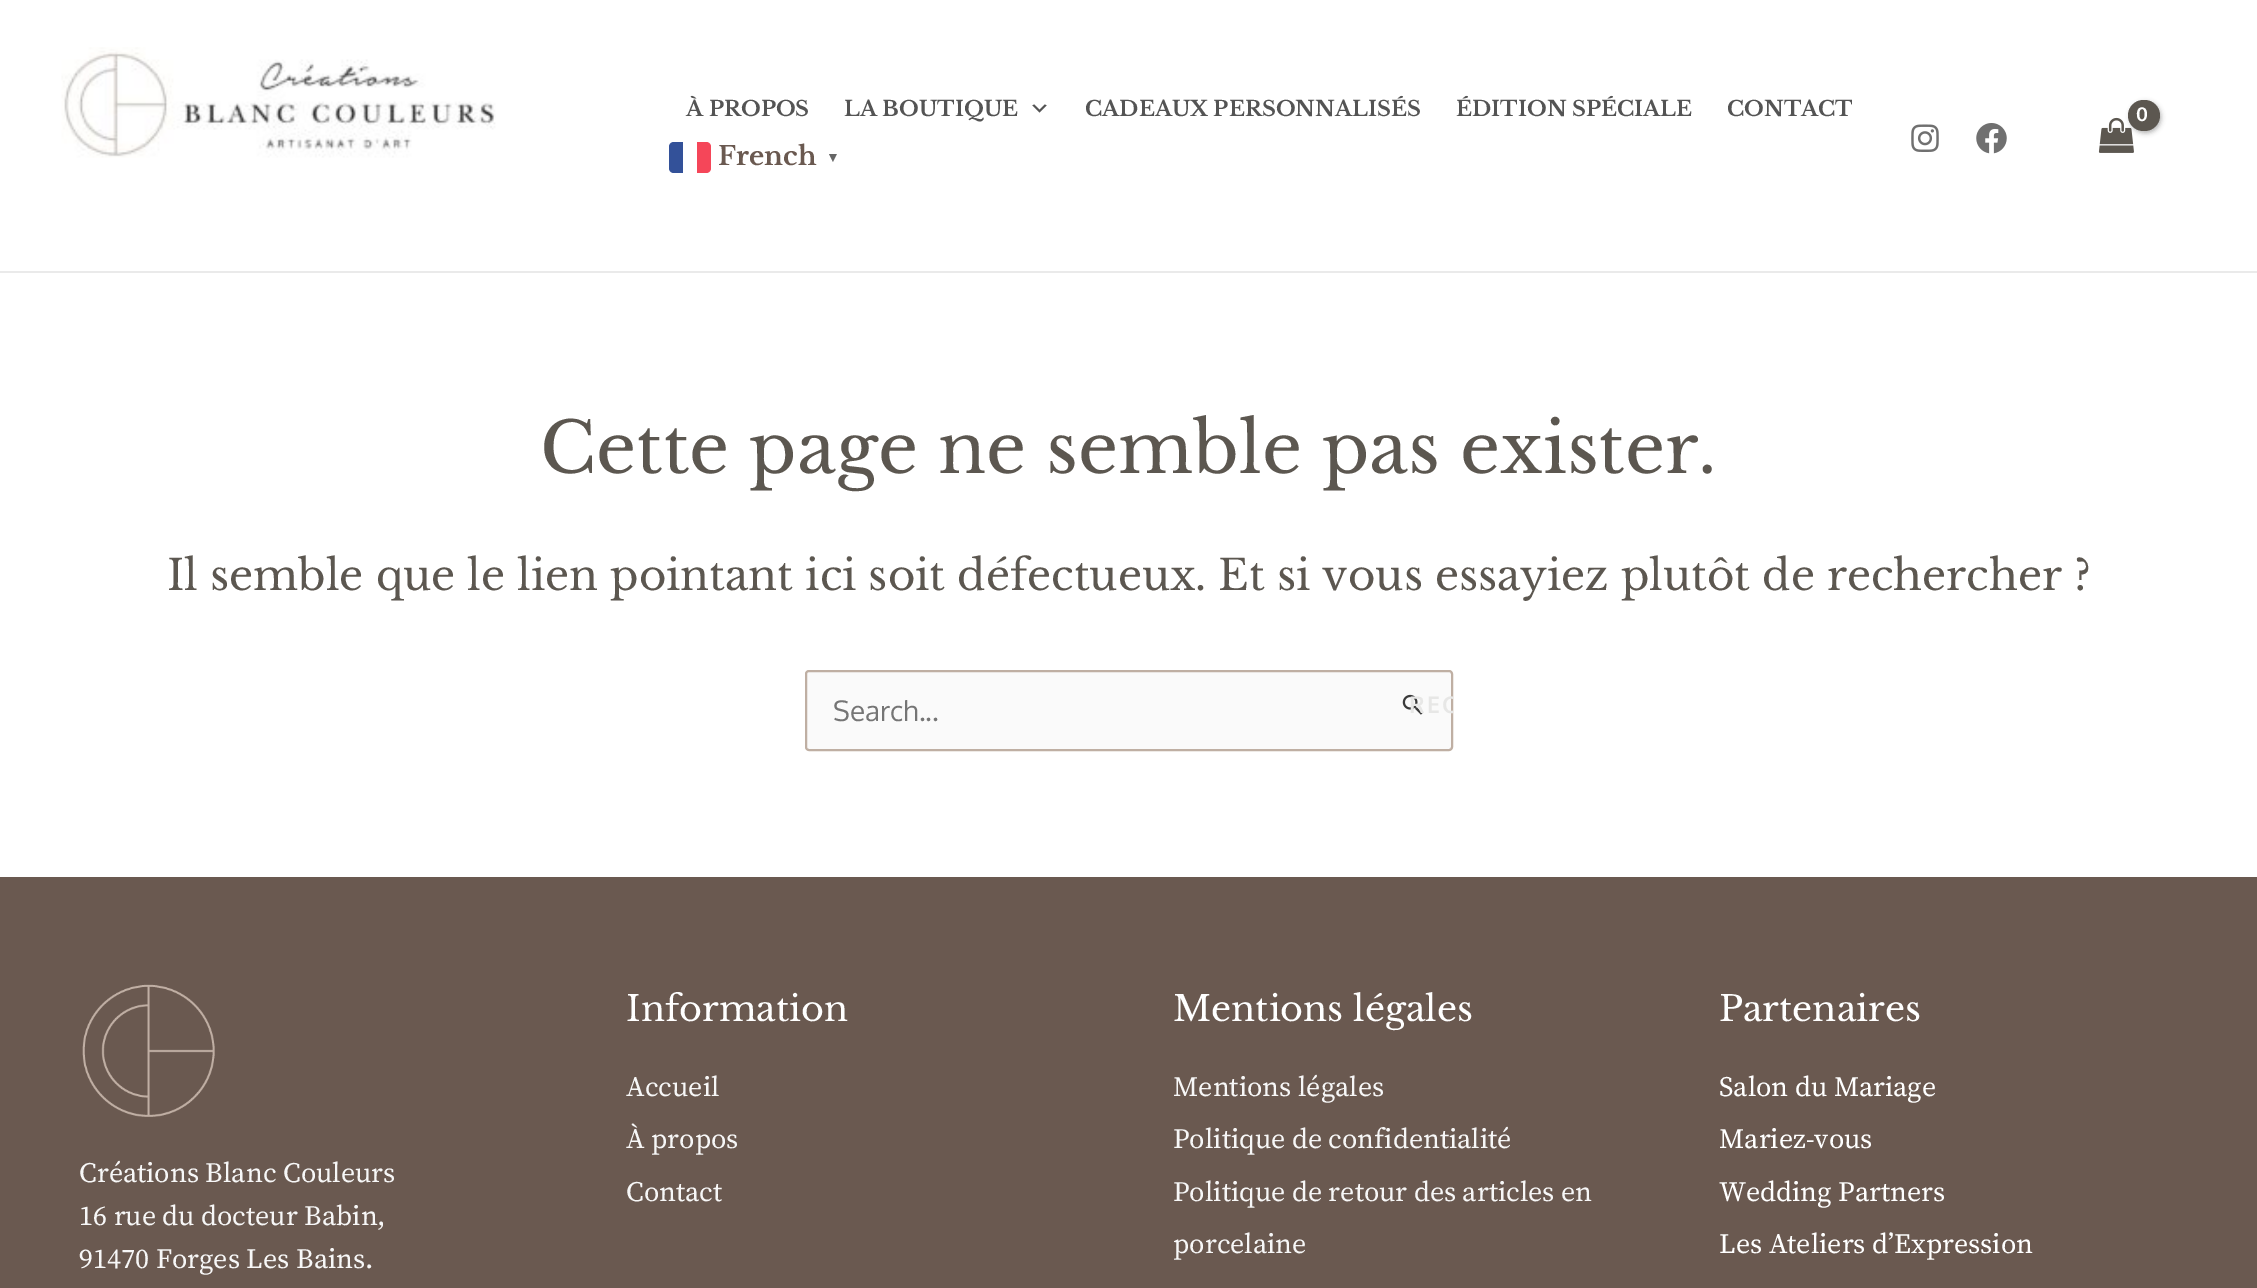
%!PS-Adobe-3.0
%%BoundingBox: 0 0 2257 1288
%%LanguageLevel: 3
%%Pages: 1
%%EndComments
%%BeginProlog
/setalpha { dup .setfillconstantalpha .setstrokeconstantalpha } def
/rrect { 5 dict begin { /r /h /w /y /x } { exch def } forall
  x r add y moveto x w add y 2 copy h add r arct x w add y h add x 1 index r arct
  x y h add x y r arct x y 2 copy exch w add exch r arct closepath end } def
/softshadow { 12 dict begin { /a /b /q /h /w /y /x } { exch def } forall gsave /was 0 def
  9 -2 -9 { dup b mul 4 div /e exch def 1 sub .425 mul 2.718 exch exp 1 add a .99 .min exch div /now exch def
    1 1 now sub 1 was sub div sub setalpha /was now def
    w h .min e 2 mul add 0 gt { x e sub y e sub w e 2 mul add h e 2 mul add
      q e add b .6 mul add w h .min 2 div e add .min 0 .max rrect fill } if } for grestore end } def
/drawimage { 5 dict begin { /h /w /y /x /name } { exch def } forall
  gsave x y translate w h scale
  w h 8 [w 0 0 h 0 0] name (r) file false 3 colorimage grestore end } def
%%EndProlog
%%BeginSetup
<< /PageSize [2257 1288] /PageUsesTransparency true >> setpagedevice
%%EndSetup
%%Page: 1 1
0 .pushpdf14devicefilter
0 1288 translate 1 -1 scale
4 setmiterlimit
1 setgray
0 0 2257 1288 rectfill
0.918 setgray
0 271 2257 2 rectfill
(images/1.raw) 61 47 435 111 drawimage
(images/2.raw) 1032 104 15 9 drawimage
0.2 0.318 0.6 setrgbcolor
newpath 674 142 moveto 683 142 lineto 683 173 lineto 674 173 lineto 671 173 669 171 669 168 curveto 669 147 lineto 669 144 671 142 674 142 curveto closepath fill
0.961 0.275 0.349 setrgbcolor
newpath 697 142 moveto 706 142 lineto 709 142 711 144 711 147 curveto 711 168 lineto 711 171 709 173 706 173 curveto 697 173 lineto closepath fill
(images/3.raw) 2098 117 36 36 drawimage
0 setgray
2130 102 31 31 15.5 2.5 0.3 softshadow
0.361 0.341 0.314 setrgbcolor
2128 100 32 31 15.5 rrect fill
(images/4.raw) 1911 124 28 28 drawimage
(images/5.raw) 1976 123 31 31 drawimage
0.98 setgray
806 671 646 79 3 rrect gsave fill grestore
0.749 0.686 0.639 setrgbcolor
2 setlinewidth
stroke
(images/6.raw) 1402 694 21 21 drawimage
0.416 0.349 0.314 setrgbcolor
0 877 2257 411 rectfill
(images/7.raw) 82 984 133 133 drawimage
/LibreBaskerville-Bold [21 0 0 -21 0 0] selectfont
0.329 setgray
686 116 moveto (À PROPOS) show
844 116 moveto (LA BOUTIQUE) show
1085 116 moveto (CADEAUX PERSONNALISÉS) show
1456 116 moveto (ÉDITION SPÉCIALE) show
1727 116 moveto (CONTACT) show
/LibreBaskerville-Bold [26 0 0 -26 0 0] selectfont
0.416 0.349 0.314 setrgbcolor
718 165 moveto (French) show
/LiberationSerif-Bold [14 0 0 -14 0 0] selectfont
0.4 setgray
826 162 moveto (▼) show
/Oxygen-Bold [19 0 0 -19 0 0] selectfont
1 setgray
2136 121 moveto -1 0 (0) ashow
/LibreBaskerville-Regular [70 0 0 -70 0 0] selectfont
0.361 0.341 0.314 setrgbcolor
540 473 moveto (Cette page ne semble pas exister.) show
/LibreBaskerville-Regular [42 0 0 -42 0 0] selectfont
167 590 moveto (Il semble que le lien pointant ici soit défectueux. Et si vous essayiez plutôt de rechercher ?) show
/Oxygen-Regular [28 0 0 -28 0 0] selectfont
0.459 setgray
833 721 moveto (Search...) show
gsave
1374 670 79 69 4 rrect clip newpath
/Oxygen-Bold [23 0 0 -23 0 0] selectfont
0.906 0.906 0.902 setrgbcolor
1409 713 moveto 2 0 (REC) ashow
grestore
/SourceSerif4-Regular [28 0 0 -28 0 0] selectfont
0.969 setgray
79 1182 moveto (Créations Blanc Couleurs) show
79 1225 moveto (16 rue du docteur Babin,) show
79 1268 moveto (91470 Forges Les Bains.) show
/LibreBaskerville-Regular [35 0 0 -35 0 0] selectfont
1 setgray
626 1021 moveto (Information) show
/SourceSerif4-Regular [28 0 0 -28 0 0] selectfont
0.969 setgray
626 1096 moveto (Accueil) show
626 1148 moveto (À propos) show
626 1201 moveto (Contact) show
/LibreBaskerville-Regular [35 0 0 -35 0 0] selectfont
1 setgray
1173 1021 moveto (Mentions légales) show
/SourceSerif4-Regular [28 0 0 -28 0 0] selectfont
0.969 setgray
1173 1096 moveto (Mentions légales) show
1173 1148 moveto (Politique de confidentialité) show
1173 1201 moveto (Politique de retour des articles en) show
1173 1253 moveto (porcelaine) show
/LibreBaskerville-Regular [35 0 0 -35 0 0] selectfont
1 setgray
1719 1021 moveto (Partenaires) show
/SourceSerif4-Regular [28 0 0 -28 0 0] selectfont
1719 1096 moveto (Salon du Mariage) show
1719 1148 moveto (Mariez-vous) show
1719 1201 moveto (Wedding Partners) show
1719 1253 moveto (Les Ateliers d’Expression) show
.poppdf14devicefilter showpage
%%EOF
